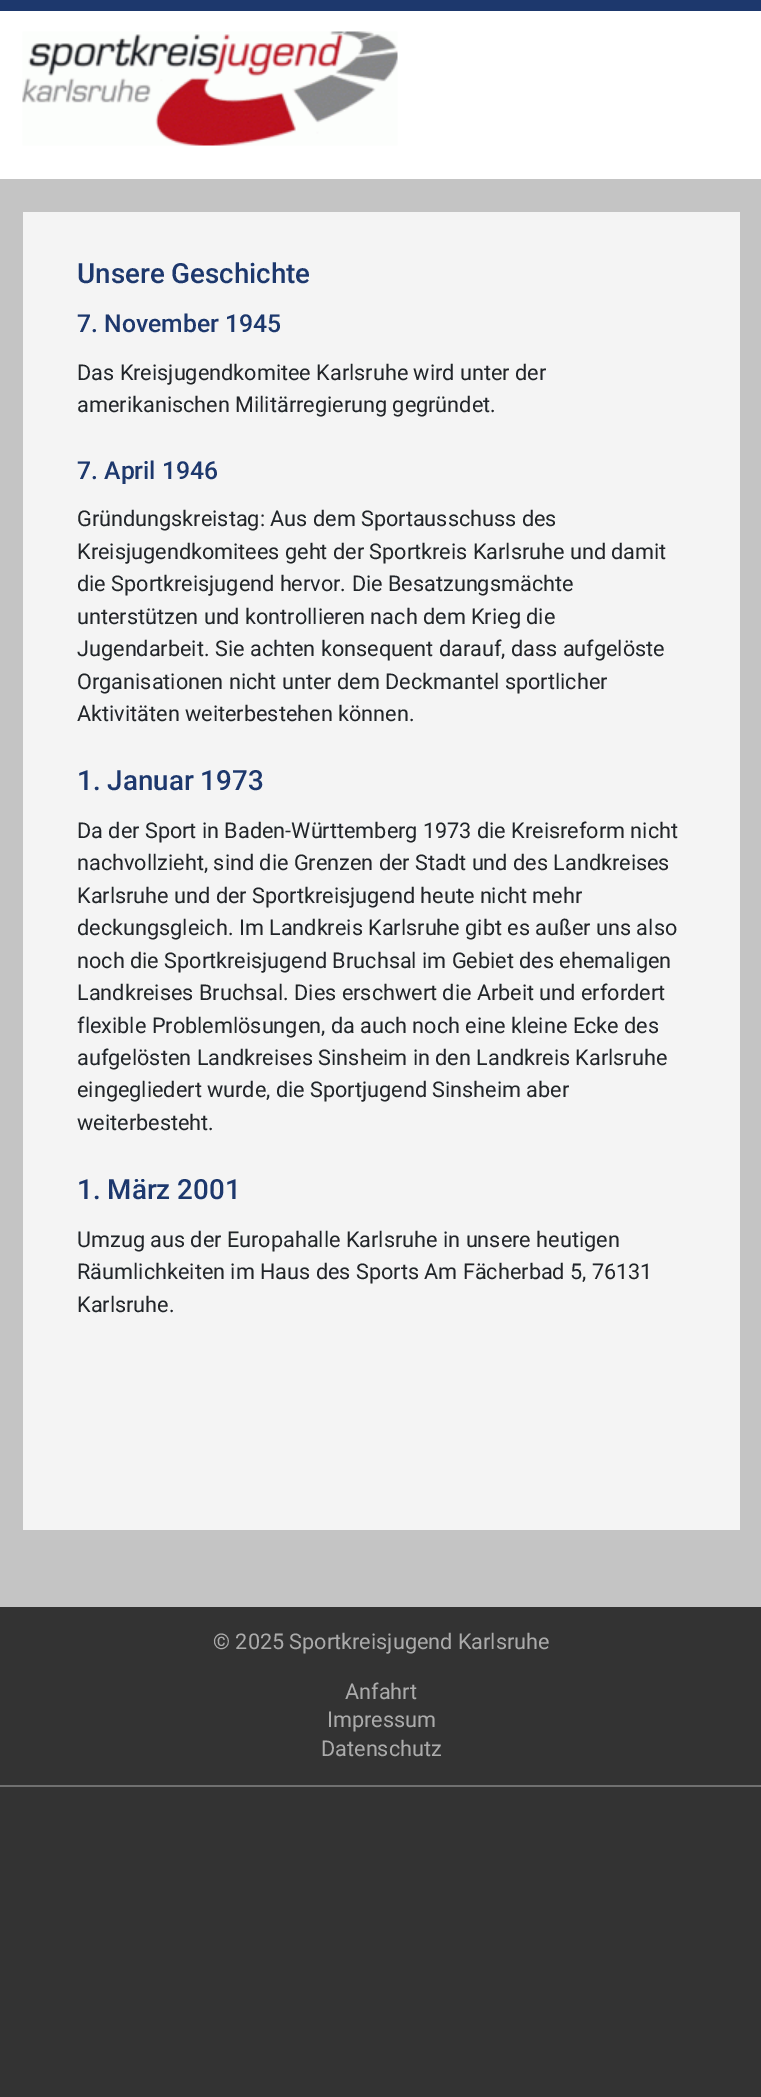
%!PS-Adobe-3.0
%%BoundingBox: 0 0 761 2097
%%LanguageLevel: 3
%%Pages: 1
%%EndComments
%%BeginProlog
/drawimage { 5 dict begin { /h /w /y /x /name } { exch def } forall
  gsave x y translate w h scale
  w h 8 [w 0 0 h 0 0] name (r) file false 3 colorimage grestore end } def
%%EndProlog
%%BeginSetup
<< /PageSize [761 2097] >> setpagedevice
%%EndSetup
%%Page: 1 1
0 2097 translate 1 -1 scale
4 setmiterlimit
0.2 setgray
0 0 761 2097 rectfill
1 setgray
0 11 761 168 rectfill
0.114 0.22 0.427 setrgbcolor
0 0 761 11 rectfill
(images/1.raw) 22 31 376 115 drawimage
0.769 setgray
0 179 761 1428 rectfill
0.957 setgray
23 212 717 1318 rectfill
0.439 setgray
0 1785 761 2 rectfill
/Roboto-Medium [27.75 0 0 -27.75 0 0] selectfont
0.114 0.22 0.427 setrgbcolor
77 283 moveto (Unsere Geschichte) show
/Roboto-Medium [24.75 0 0 -24.75 0 0] selectfont
77 332 moveto (7. November 1945) show
/Roboto-Regular [21.65 0 0 -21.65 0 0] selectfont
0.129 0.145 0.161 setrgbcolor
77 380 moveto (Das Kreisjugendkomitee Karlsruhe wird unter der) show
77 412 moveto (amerikanischen Militärregierung gegründet.) show
/Roboto-Medium [24.75 0 0 -24.75 0 0] selectfont
0.114 0.22 0.427 setrgbcolor
77 479 moveto (7. April 1946) show
/Roboto-Regular [21.65 0 0 -21.65 0 0] selectfont
0.129 0.145 0.161 setrgbcolor
77 526 moveto (Gründungskreistag: Aus dem Sportausschuss des) show
77 559 moveto (Kreisjugendkomitees geht der Sportkreis Karlsruhe und damit) show
77 591 moveto (die Sportkreisjugend hervor. Die Besatzungsmächte) show
77 624 moveto (unterstützen und kontrollieren nach dem Krieg die) show
77 656 moveto (Jugendarbeit. Sie achten konsequent darauf, dass aufgelöste) show
77 689 moveto (Organisationen nicht unter dem Deckmantel sportlicher) show
77 721 moveto (Aktivitäten weiterbestehen können.) show
/Roboto-Medium [27.75 0 0 -27.75 0 0] selectfont
0.114 0.22 0.427 setrgbcolor
77 790 moveto (1. Januar 1973) show
/Roboto-Regular [21.65 0 0 -21.65 0 0] selectfont
0.129 0.145 0.161 setrgbcolor
77 838 moveto (Da der Sport in Baden-Württemberg 1973 die Kreisreform nicht) show
77 870 moveto (nachvollzieht, sind die Grenzen der Stadt und des Landkreises) show
77 903 moveto (Karlsruhe und der Sportkreisjugend heute nicht mehr) show
77 935 moveto (deckungsgleich. Im Landkreis Karlsruhe gibt es außer uns also) show
77 968 moveto (noch die Sportkreisjugend Bruchsal im Gebiet des ehemaligen) show
77 1000 moveto (Landkreises Bruchsal. Dies erschwert die Arbeit und erfordert) show
77 1033 moveto (flexible Problemlösungen, da auch noch eine kleine Ecke des) show
77 1065 moveto (aufgelösten Landkreises Sinsheim in den Landkreis Karlsruhe) show
77 1097 moveto (eingegliedert wurde, die Sportjugend Sinsheim aber) show
77 1130 moveto (weiterbesteht.) show
/Roboto-Medium [27.75 0 0 -27.75 0 0] selectfont
0.114 0.22 0.427 setrgbcolor
77 1199 moveto (1. März 2001) show
/Roboto-Regular [21.65 0 0 -21.65 0 0] selectfont
0.129 0.145 0.161 setrgbcolor
77 1247 moveto (Umzug aus der Europahalle Karlsruhe in unsere heutigen) show
77 1279 moveto (Räumlichkeiten im Haus des Sports Am Fächerbad 5, 76131) show
77 1312 moveto (Karlsruhe.) show
0.671 setgray
213 1649 moveto (© 2025 Sportkreisjugend Karlsruhe) show
345 1699 moveto (Anfahrt) show
327 1727 moveto (Impressum) show
321 1756 moveto (Datenschutz) show
showpage
%%EOF
